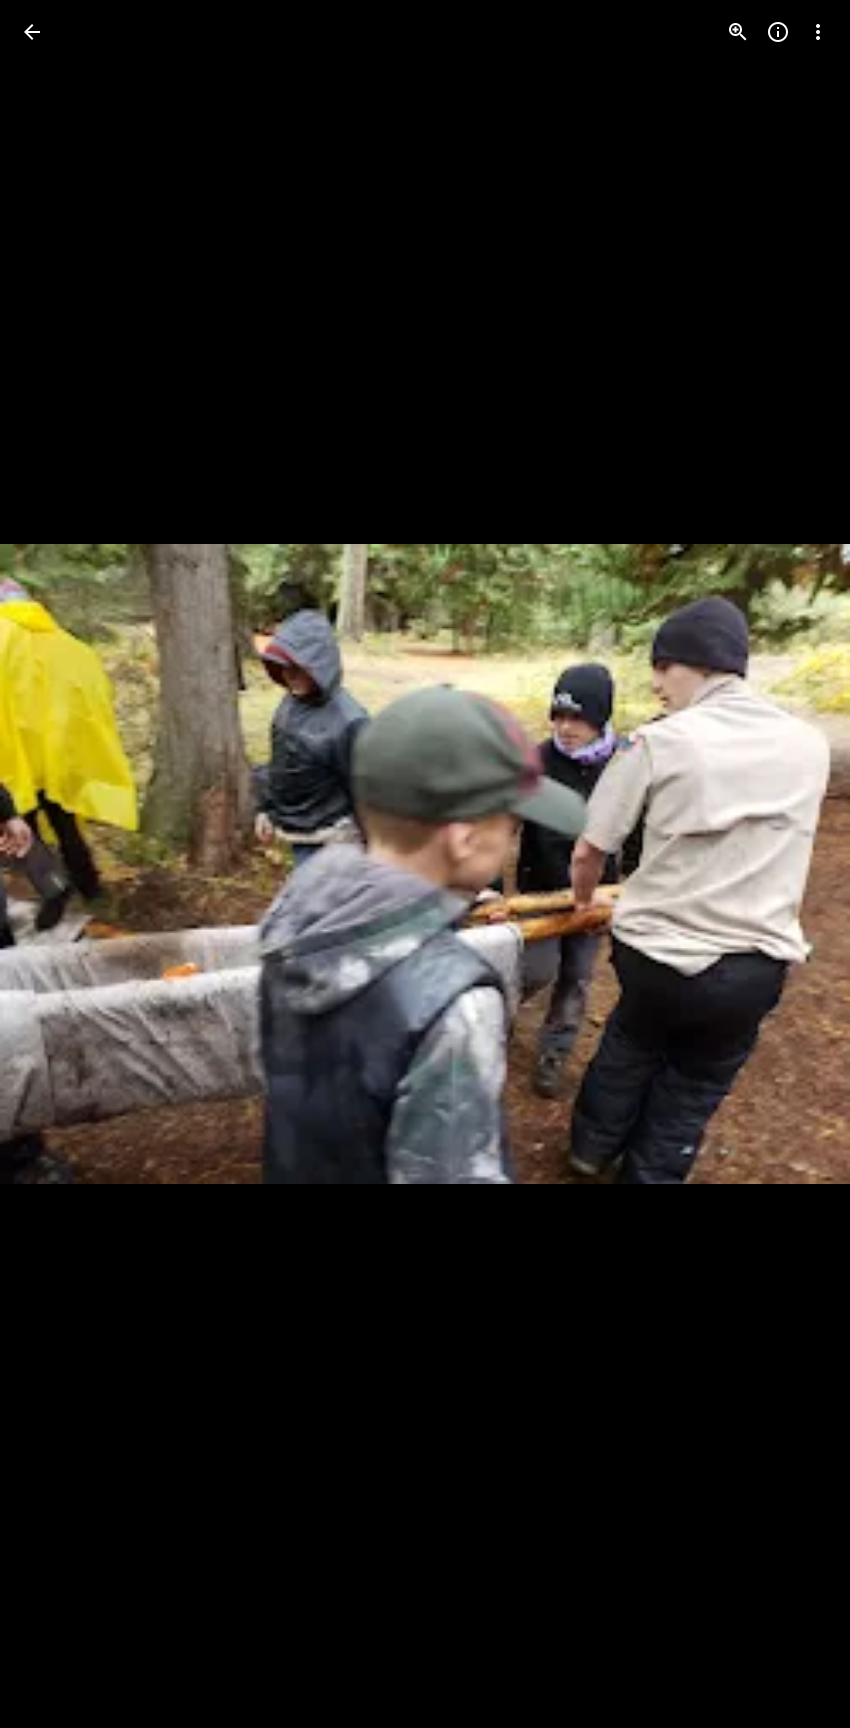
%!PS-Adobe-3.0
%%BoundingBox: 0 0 850 1728
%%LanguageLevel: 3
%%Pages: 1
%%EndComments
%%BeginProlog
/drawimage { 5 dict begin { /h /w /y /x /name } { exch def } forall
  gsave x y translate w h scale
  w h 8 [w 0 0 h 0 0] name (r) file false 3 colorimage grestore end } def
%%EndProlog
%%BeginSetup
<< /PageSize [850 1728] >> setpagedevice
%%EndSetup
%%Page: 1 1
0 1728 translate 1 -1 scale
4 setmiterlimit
0 setgray
0 0 850 1728 rectfill
(images/1.raw) 24 24 16 16 drawimage
(images/2.raw) 729 23 18 18 drawimage
(images/3.raw) 768 22 20 20 drawimage
(images/4.raw) 816 24 4 16 drawimage
(images/5.raw) 0 544 850 640 drawimage
showpage
%%EOF
